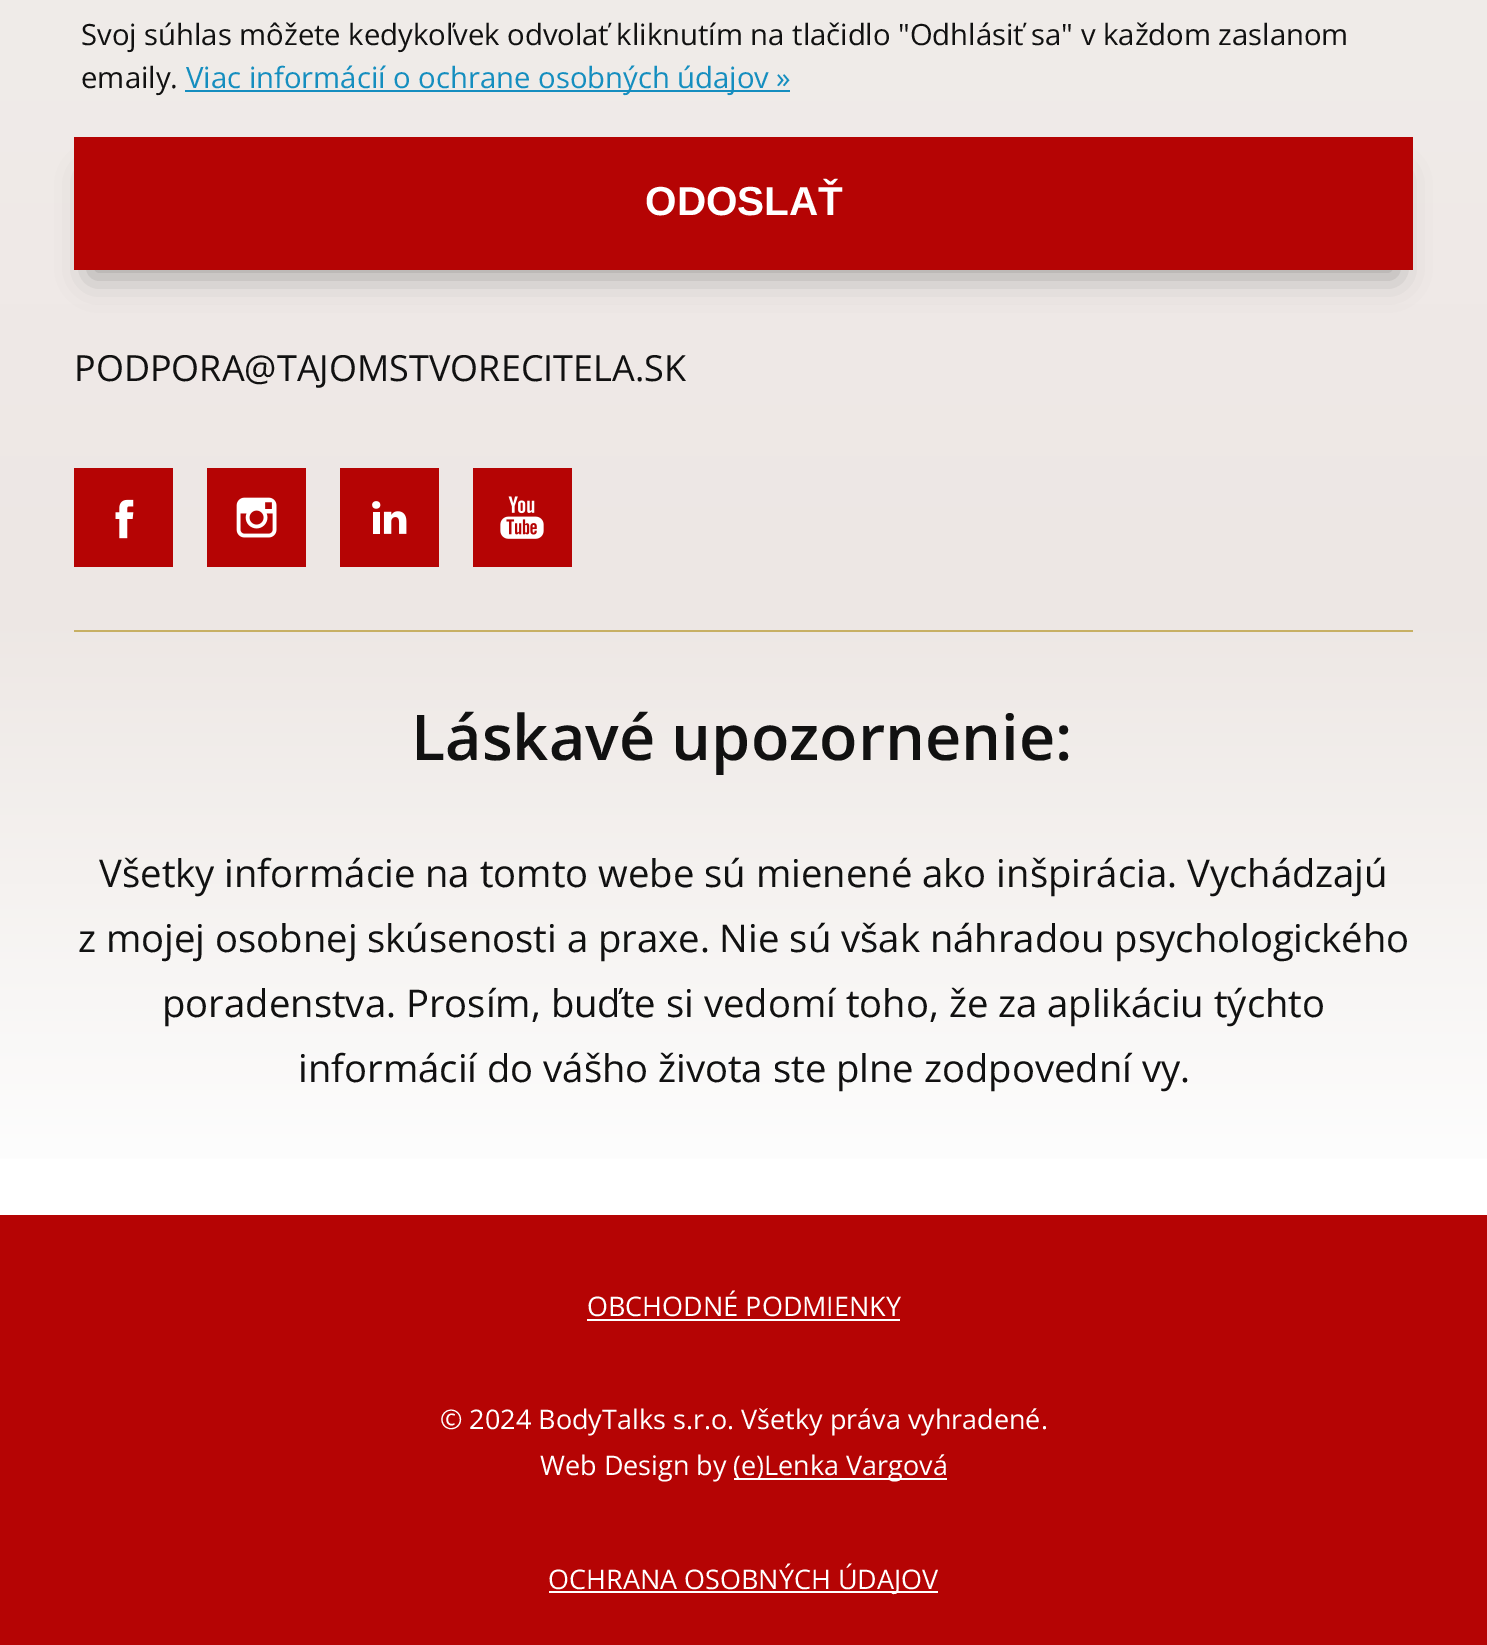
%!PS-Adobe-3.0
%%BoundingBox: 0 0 1487 1645
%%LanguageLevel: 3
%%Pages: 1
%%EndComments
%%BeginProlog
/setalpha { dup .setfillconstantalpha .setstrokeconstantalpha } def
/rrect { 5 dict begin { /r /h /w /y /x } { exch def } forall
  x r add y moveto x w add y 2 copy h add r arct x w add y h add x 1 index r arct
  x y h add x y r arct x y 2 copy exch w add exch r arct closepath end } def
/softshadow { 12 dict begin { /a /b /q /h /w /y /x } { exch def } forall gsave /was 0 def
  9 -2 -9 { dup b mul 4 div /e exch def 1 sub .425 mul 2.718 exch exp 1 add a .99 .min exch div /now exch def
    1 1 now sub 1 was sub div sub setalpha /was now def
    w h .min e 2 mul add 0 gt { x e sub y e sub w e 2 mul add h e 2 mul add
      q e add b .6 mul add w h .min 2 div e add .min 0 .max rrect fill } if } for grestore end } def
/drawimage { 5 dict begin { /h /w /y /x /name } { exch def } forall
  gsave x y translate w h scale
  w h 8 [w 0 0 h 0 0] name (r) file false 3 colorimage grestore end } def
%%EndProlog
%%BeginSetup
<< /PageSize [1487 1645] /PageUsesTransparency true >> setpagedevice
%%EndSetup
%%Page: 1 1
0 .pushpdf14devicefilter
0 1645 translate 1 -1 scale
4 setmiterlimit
1 setgray
0 0 1487 1645 rectfill
gsave newpath 0 0 moveto 1487 0 lineto 1487 608 lineto 0 608 lineto closepath clip newpath
<< /ShadingType 2 /ColorSpace /DeviceRGB /Coords [744 -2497 744 608] /Extend [true true] /Function << /FunctionType 2 /Domain [0 1] /C0 [1 1 1] /C1 [0.929 0.906 0.894] /N 1 >> >> shfill grestore
0.082 0.557 0.749 setrgbcolor
185 90 605 2 rectfill
0 setgray
90 176 1307 101 0 16 0.3 softshadow
0.71 0.016 0.016 setrgbcolor
74 137 1339 133 rectfill
74 468 99 99 rectfill
(images/1.raw) 115 499 19 40 drawimage
207 468 99 99 rectfill
(images/2.raw) 236 497 41 41 drawimage
340 468 99 99 rectfill
(images/3.raw) 372 501 35 33 drawimage
473 468 99 99 rectfill
(images/4.raw) 500 496 44 43 drawimage
gsave newpath 0 608 moveto 1487 608 lineto 1487 1159 lineto 0 1159 lineto closepath clip newpath
<< /ShadingType 2 /ColorSpace /DeviceRGB /Coords [744 608 744 1215] /Extend [true true] /Function << /FunctionType 2 /Domain [0 1] /C0 [0.929 0.906 0.894] /C1 [1 1 1] /N 1 >> >> shfill grestore
0.78 0.69 0.392 setrgbcolor
74 630 1339 2 rectfill
0.71 0.016 0.016 setrgbcolor
0 1215 1487 430 rectfill
1 setgray
587 1319 313 2 rectfill
734 1478 213 2 rectfill
549 1591 389 2 rectfill
/OpenSans-Regular [29.25 0 0 -29.25 0 0] selectfont
0.067 setgray
81 45 moveto (Svoj súhlas môžete kedykoľvek odvolať kliknutím na tlačidlo "Odhlásiť sa" v každom zaslanom) show
81 88 moveto (emaily.) show
0.082 0.557 0.749 setrgbcolor
186 88 moveto (Viac informácií o ochrane osobných údajov ») show
/LiberationSans-Bold [40.5 0 0 -40.5 0 0] selectfont
1 setgray
645 215 moveto (ODOSLAŤ) show
/OpenSans-Regular [36 0 0 -36 0 0] selectfont
0.067 setgray
74 381 moveto (PODPORA@TAJOMSTVORECITELA.SK) show
/OpenSans-SemiBold [63 0 0 -63 0 0] selectfont
411 760 moveto (Láskavé upozornenie:) show
/OpenSans-Regular [38.25 0 0 -38.25 0 0] selectfont
99 887 moveto (Všetky informácie na tomto webe sú mienené ako inšpirácia. Vychádzajú) show
78 952 moveto (z mojej osobnej skúsenosti a praxe. Nie sú však náhradou psychologického) show
162 1017 moveto (poradenstva. Prosím, buďte si vedomí toho, že za aplikáciu týchto) show
298 1082 moveto (informácií do vášho života ste plne zodpovední vy.) show
/OpenSans-Regular [27 0 0 -27 0 0] selectfont
1 setgray
587 1316 moveto (OBCHODNÉ PODMIENKY) show
440 1429 moveto (© 2024 BodyTalks s.r.o. Všetky práva vyhradené.) show
540 1475 moveto (Web Design by) show
733 1475 moveto (\(e\)Lenka Vargová) show
548 1589 moveto (OCHRANA OSOBNÝCH ÚDAJOV) show
.poppdf14devicefilter showpage
%%EOF
